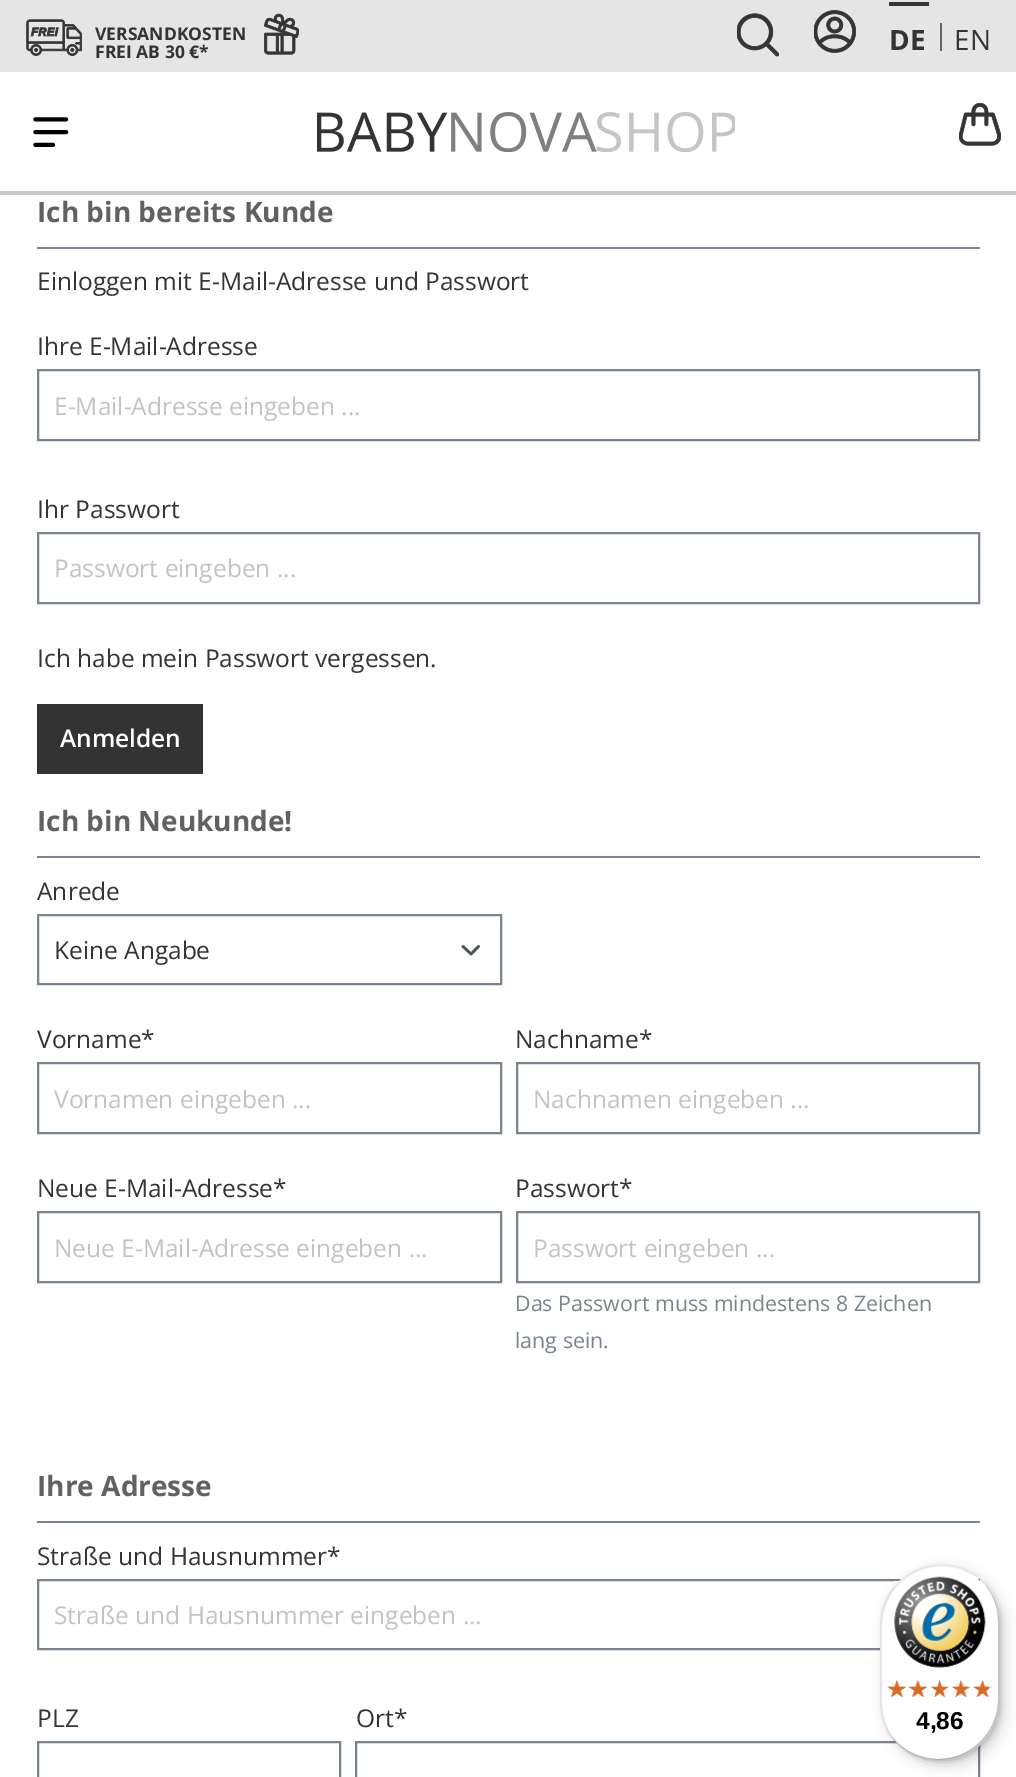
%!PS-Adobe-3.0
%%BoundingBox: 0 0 1016 1777
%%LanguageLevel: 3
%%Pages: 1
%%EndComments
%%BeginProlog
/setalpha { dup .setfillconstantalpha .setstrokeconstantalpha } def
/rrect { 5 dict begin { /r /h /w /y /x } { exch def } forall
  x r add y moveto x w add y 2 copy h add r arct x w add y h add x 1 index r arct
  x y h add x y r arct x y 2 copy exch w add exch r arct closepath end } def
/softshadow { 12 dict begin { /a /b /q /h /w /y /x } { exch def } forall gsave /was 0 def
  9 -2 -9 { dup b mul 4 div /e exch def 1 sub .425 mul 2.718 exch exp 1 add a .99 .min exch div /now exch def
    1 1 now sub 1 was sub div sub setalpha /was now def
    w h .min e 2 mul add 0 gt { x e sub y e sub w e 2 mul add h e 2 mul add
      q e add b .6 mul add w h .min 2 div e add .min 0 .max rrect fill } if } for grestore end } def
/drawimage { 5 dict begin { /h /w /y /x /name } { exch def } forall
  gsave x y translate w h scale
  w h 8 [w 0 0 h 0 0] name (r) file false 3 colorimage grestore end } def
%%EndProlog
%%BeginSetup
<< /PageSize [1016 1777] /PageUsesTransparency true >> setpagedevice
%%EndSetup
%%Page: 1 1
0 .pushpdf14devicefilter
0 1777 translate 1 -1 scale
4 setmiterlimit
1 setgray
0 0 1016 1777 rectfill
0.898 setgray
0 0 1016 72 rectfill
(images/1.raw) 26 19 56 37 drawimage
(images/2.raw) 264 13 35 42 drawimage
(images/3.raw) 737 13 42 44 drawimage
(images/4.raw) 814 10 42 43 drawimage
0.204 setgray
889 2 40 4 rectfill
0.404 setgray
940 23 2 28 rectfill
0.792 setgray
0 191 1016 4 rectfill
(images/5.raw) 33 117 36 30 drawimage
(images/6.raw) 317 112 418 40 drawimage
(images/7.raw) 959 102 42 44 drawimage
0.475 0.518 0.565 setrgbcolor
37 247 943 2 rectfill
2 setlinewidth
38 370 941 70 rectstroke
38 533 941 70 rectstroke
0.2 setgray
37 704 166 70 rectfill
0.475 0.518 0.565 setrgbcolor
37 856 943 2 rectfill
0.29 0.329 0.357 setrgbcolor
2.6 setlinewidth
1 setlinecap
1 setlinejoin
newpath 463 946.5 moveto 471 954 lineto 478.5 946.5 lineto stroke
0.475 0.518 0.565 setrgbcolor
2 setlinewidth
0 setlinecap
0 setlinejoin
38 915 463 69 rectstroke
38 1063 463 70 rectstroke
517 1063 462 70 rectstroke
38 1212 463 70 rectstroke
517 1212 462 70 rectstroke
37 1521 943 2 rectfill
38 1580 941 69 rectstroke
38 1742 302 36 rectstroke
356 1742 623 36 rectstroke
0 setgray
886 1570 119 196 59.5 7 0.15 softshadow
882 1566 119 196 59.5 2 0.15 softshadow
1 setgray
880 1565 119 196 59.5 rrect fill
0.1 setalpha
0 setgray
newpath 942 1566 moveto 951 1566 961 1568 969 1573 curveto 960 1568 950 1565 940 1565 curveto 907 1565 880 1592 880 1624 curveto 880 1702 lineto 880 1726 894 1746 915 1756 curveto 895 1746 882 1726 882 1703 curveto 882 1626 lineto 882 1593 909 1566 942 1566 curveto closepath fill
0.2 setalpha
newpath 893 1738 moveto 904 1752 920 1761 940 1761 curveto 972 1761 999 1734 999 1702 curveto 999 1624 lineto 999 1616 997 1608 994 1600 curveto 997 1607 998 1614 998 1622 curveto 998 1699 lineto 998 1732 971 1759 938 1759 curveto 920 1759 904 1751 893 1738 curveto closepath fill
0.196 setgray
newpath 887 1730 moveto 898 1749 917 1761 940 1761 curveto 972 1761 999 1734 999 1702 curveto 999 1624 lineto 999 1614 996 1605 992 1596 curveto 996 1604 998 1613 998 1623 curveto 998 1700 lineto 998 1733 972 1759 939 1759 curveto 917 1759 898 1748 887 1730 curveto closepath fill
0.3 setalpha
1 setgray
newpath 890 1734 moveto 901 1750 919 1761 940 1761 curveto 972 1761 999 1734 999 1702 curveto 999 1624 lineto 999 1613 996 1603 990 1594 curveto 995 1602 998 1612 998 1623 curveto 998 1700 lineto 998 1733 972 1760 939 1760 curveto 919 1760 901 1750 890 1734 curveto closepath fill
1 setalpha
(images/8.raw) 894 1576 92 92 drawimage
(images/9.raw) 887 1680 19 17 drawimage
(images/10.raw) 910 1680 18 17 drawimage
(images/11.raw) 931 1680 18 17 drawimage
(images/12.raw) 952 1680 19 17 drawimage
(images/13.raw) 973 1680 19 17 drawimage
(images/14.raw) 887 1680 20 18 drawimage
(images/15.raw) 908 1680 20 18 drawimage
(images/16.raw) 931 1680 18 18 drawimage
(images/17.raw) 952 1680 18 18 drawimage
(images/18.raw) 973 1680 16 18 drawimage
/OpenSans-Bold [17.5 0 0 -17.5 0 0] selectfont
0.204 setgray
95 40 moveto (VERSANDKOSTEN) show
95 58 moveto (FREI AB 30 €*) show
/OpenSans-Bold [28 0 0 -28 0 0] selectfont
889 50 moveto (DE) show
/OpenSans-Regular [28 0 0 -28 0 0] selectfont
954 50 moveto (EN) show
/OpenSans-Bold [28 0 0 -28 0 0] selectfont
0.38 setgray
37 222 moveto (Ich bin bereits Kunde) show
/OpenSans-Regular [24.5 0 0 -24.5 0 0] selectfont
0.204 setgray
37 290 moveto (Einloggen mit E-Mail-Adresse und Passwort) show
37 355 moveto (Ihre E-Mail-Adresse) show
0.765 setgray
54 415 moveto (E-Mail-Adresse eingeben ...) show
0.204 setgray
37 518 moveto (Ihr Passwort) show
0.765 setgray
54 577 moveto (Passwort eingeben ...) show
0.204 setgray
37 667 moveto (Ich habe mein Passwort vergessen.) show
/OpenSans-SemiBold [24.5 0 0 -24.5 0 0] selectfont
1 setgray
60 747 moveto (Anmelden) show
/OpenSans-Bold [28 0 0 -28 0 0] selectfont
0.38 setgray
37 831 moveto (Ich bin Neukunde!) show
/OpenSans-Regular [24.5 0 0 -24.5 0 0] selectfont
0.204 setgray
37 900 moveto (Anrede) show
54 959 moveto (Keine Angabe) show
37 1048 moveto (Vorname*) show
0.765 setgray
54 1108 moveto (Vornamen eingeben ...) show
0.204 setgray
515 1048 moveto (Nachname*) show
0.765 setgray
533 1108 moveto (Nachnamen eingeben ...) show
0.204 setgray
37 1197 moveto (Neue E-Mail-Adresse*) show
0.765 setgray
54 1257 moveto (Neue E-Mail-Adresse eingeben ...) show
0.204 setgray
515 1197 moveto (Passwort*) show
0.765 setgray
533 1257 moveto (Passwort eingeben ...) show
/OpenSans-Regular [21.4 0 0 -21.4 0 0] selectfont
0.475 0.518 0.565 setrgbcolor
515 1311 moveto (Das Passwort muss mindestens 8 Zeichen) show
515 1348 moveto (lang sein.) show
/OpenSans-Bold [28 0 0 -28 0 0] selectfont
0.38 setgray
37 1496 moveto (Ihre Adresse) show
/OpenSans-Regular [24.5 0 0 -24.5 0 0] selectfont
0.204 setgray
37 1565 moveto (Straße und Hausnummer*) show
0.765 setgray
54 1624 moveto (Straße und Hausnummer eingeben ...) show
0.204 setgray
37 1727 moveto (PLZ) show
356 1727 moveto (Ort*) show
/LiberationSans-Bold [24.5 0 0 -24.5 0 0] selectfont
0 setgray
916 1729 moveto (4,86) show
.poppdf14devicefilter showpage
%%EOF
